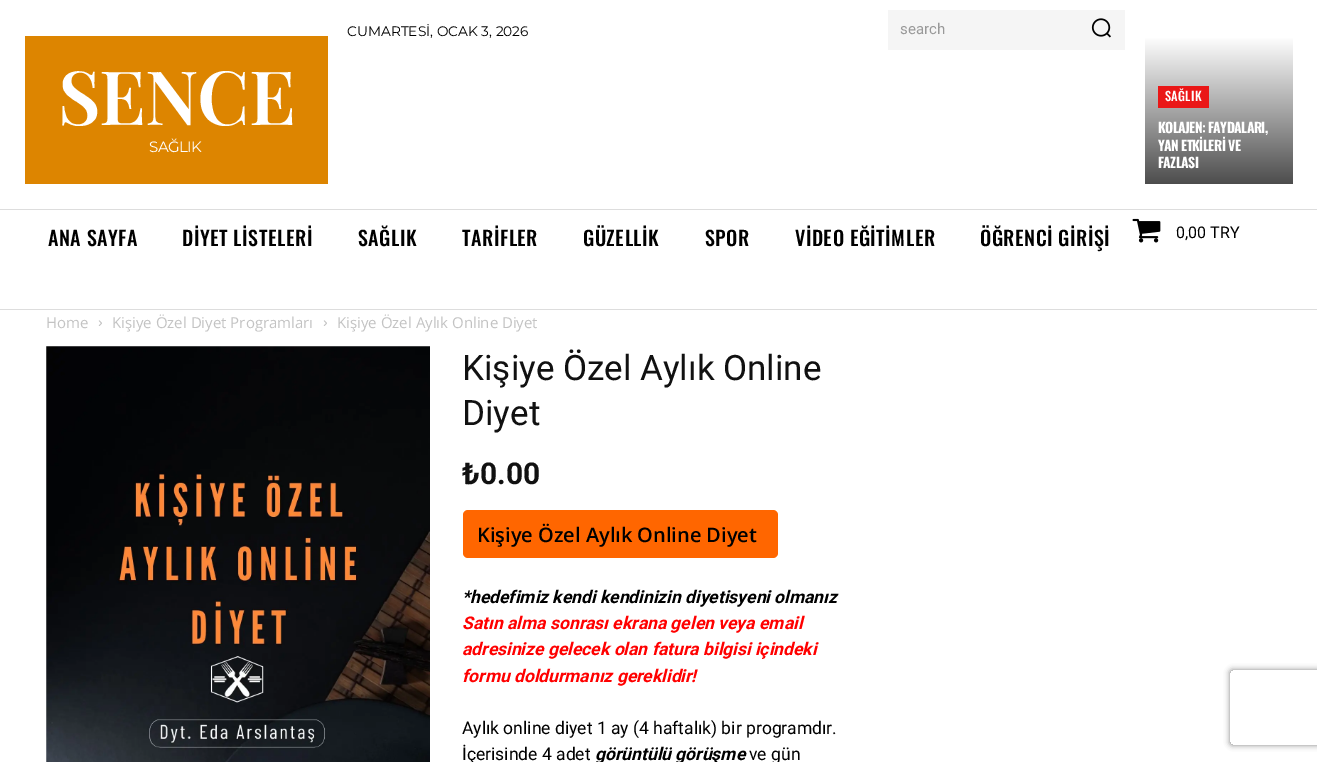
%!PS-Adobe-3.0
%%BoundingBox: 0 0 1317 762
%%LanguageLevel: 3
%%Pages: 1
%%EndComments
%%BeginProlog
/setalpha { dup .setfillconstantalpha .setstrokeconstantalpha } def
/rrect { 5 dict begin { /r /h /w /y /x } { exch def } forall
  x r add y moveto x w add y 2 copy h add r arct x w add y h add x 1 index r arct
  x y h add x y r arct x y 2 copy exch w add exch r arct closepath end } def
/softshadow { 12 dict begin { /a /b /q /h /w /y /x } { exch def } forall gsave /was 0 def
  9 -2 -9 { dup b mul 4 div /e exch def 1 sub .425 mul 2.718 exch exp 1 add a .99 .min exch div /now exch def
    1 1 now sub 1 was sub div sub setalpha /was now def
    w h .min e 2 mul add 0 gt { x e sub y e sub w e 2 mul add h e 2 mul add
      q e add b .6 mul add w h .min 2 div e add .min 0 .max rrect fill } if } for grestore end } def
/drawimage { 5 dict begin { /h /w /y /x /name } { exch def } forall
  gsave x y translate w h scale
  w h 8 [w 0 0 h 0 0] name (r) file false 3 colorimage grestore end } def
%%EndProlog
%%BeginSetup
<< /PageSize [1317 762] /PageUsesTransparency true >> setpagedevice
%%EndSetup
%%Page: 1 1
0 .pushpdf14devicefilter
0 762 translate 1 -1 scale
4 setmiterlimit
1 setgray
0 0 1317 762 rectfill
0.961 setgray
888 10 237 40 rectfill
(images/1.raw) 1091 18 20 20 drawimage
0.867 0.522 0 setrgbcolor
25 36 303 148 rectfill
gsave newpath 1145 38 moveto 1293 38 lineto 1293 184 lineto 1145 184 lineto closepath clip newpath
<< /ShadingType 2 /ColorSpace /DeviceRGB /Coords [1219 184 1219 36] /Extend [true true] /Function << /FunctionType 2 /Domain [0 1] /C0 [0.302 0.302 0.302] /C1 [1 1 1] /N 1 >> >> shfill grestore
0.918 0.09 0.09 setrgbcolor
1158 86 51 22 rectfill
0.867 setgray
0 209 1317 1 rectfill
0 309 1317 1 rectfill
(images/2.raw) 1132 218 29 25 drawimage
(images/3.raw) 98 320 4 6 drawimage
(images/3.raw) 323 320 4 6 drawimage
(images/4.raw) 46 346 384 416 drawimage
1 0.4 0 setrgbcolor
463 510 315 48 5 rrect fill
gsave
newpath 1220 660 moveto 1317 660 lineto 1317 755 lineto 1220 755 lineto closepath 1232.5 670 moveto 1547.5 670 lineto 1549 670 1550 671 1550 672.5 curveto 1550 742.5 lineto 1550 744 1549 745 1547.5 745 curveto 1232.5 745 lineto 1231 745 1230 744 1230 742.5 curveto 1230 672.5 lineto 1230 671 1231 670 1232.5 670 curveto closepath eoclip newpath
0.502 setgray
1230 670 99 75 2.5 3 1 softshadow
grestore
/Montserrat-Regular [13.75 0 0 -13.75 0 0] selectfont
0 setgray
347 36 moveto (CUMARTESİ, OCAK 3, 2026) show
/Roboto-Regular [15 0 0 -15 0 0] selectfont
0.6 setgray
900 34 moveto (search) show
/PlayfairDisplay-SemiBold [75 0 0 -75 0 0] selectfont
1 setgray
58 125 moveto -1.25 0 (SENCE) ashow
/Montserrat-Regular [15 0 0 -15 0 0] selectfont
149 152 moveto -0.5 0 (SAĞLIK) ashow
/Oswald-Medium [12.5 0 0 -12.5 0 0] selectfont
1165 101 moveto 0.25 0 (SAĞLIK) ashow
/Oswald-Bold [13.75 0 0 -13.75 0 0] selectfont
1158 133 moveto -0.6 0 (KOLAJEN: FAYDALARI,) ashow
1158 151 moveto -0.6 0 (YAN ETKİLERİ VE) ashow
1158 168 moveto -0.6 0 (FAZLASI) ashow
/Oswald-Medium [20 0 0 -20 0 0] selectfont
0 setgray
48 246 moveto 0.5 0 (ANA SAYFA) ashow
182 246 moveto 0.5 0 (DİYET LİSTELERİ) ashow
358 246 moveto 0.5 0 (SAĞLIK) ashow
462 246 moveto 0.5 0 (TARİFLER) ashow
583 246 moveto 0.5 0 (GÜZELLİK) ashow
705 246 moveto 0.5 0 (SPOR) ashow
795 246 moveto 0.5 0 (VİDEO EĞİTİMLER) ashow
980 246 moveto 0.5 0 (ÖĞRENCİ GİRİŞİ) ashow
/Roboto-Regular [16 0 0 -16 0 0] selectfont
1176 238 moveto (0,00 TRY) show
/OpenSans-Regular [15 0 0 -15 0 0] selectfont
0.765 setgray
46 328 moveto (Home) show
112 328 moveto (Kişiye Özel Diyet Programları) show
337 328 moveto (Kişiye Özel Aylık Online Diyet) show
/Roboto-Regular [35 0 0 -35 0 0] selectfont
0.067 setgray
462 380 moveto (Kişiye Özel Aylık Online) show
462 425 moveto (Diyet) show
/Roboto-Bold [30 0 0 -30 0 0] selectfont
462 484 moveto (₺0.00) show
/OpenSans-SemiBold [20 0 0 -20 0 0] selectfont
0 setgray
477 542 moveto (Kişiye Özel Aylık Online Diyet) show
/Roboto-BoldItalic [17.5 0 0 -17.5 0 0] selectfont
462 603 moveto (*hedefimiz kendi kendinizin diyetisyeni olmanız) show
1 0 0 setrgbcolor
462 629 moveto (Satın alma sonrası ekrana gelen veya email) show
462 655 moveto (adresinize gelecek olan fatura bilgisi içindeki) show
462 682 moveto (formu doldurmanız gereklidir!) show
/Roboto-Regular [17.5 0 0 -17.5 0 0] selectfont
0 setgray
462 734 moveto (Aylık online diyet 1 ay \(4 haftalık\) bir programdır.) show
462 760 moveto (İçerisinde 4 adet) show
/Roboto-BoldItalic [17.5 0 0 -17.5 0 0] selectfont
595 760 moveto (görüntülü görüşme) show
/Roboto-Regular [17.5 0 0 -17.5 0 0] selectfont
749 760 moveto (ve gün) show
.poppdf14devicefilter showpage
%%EOF
